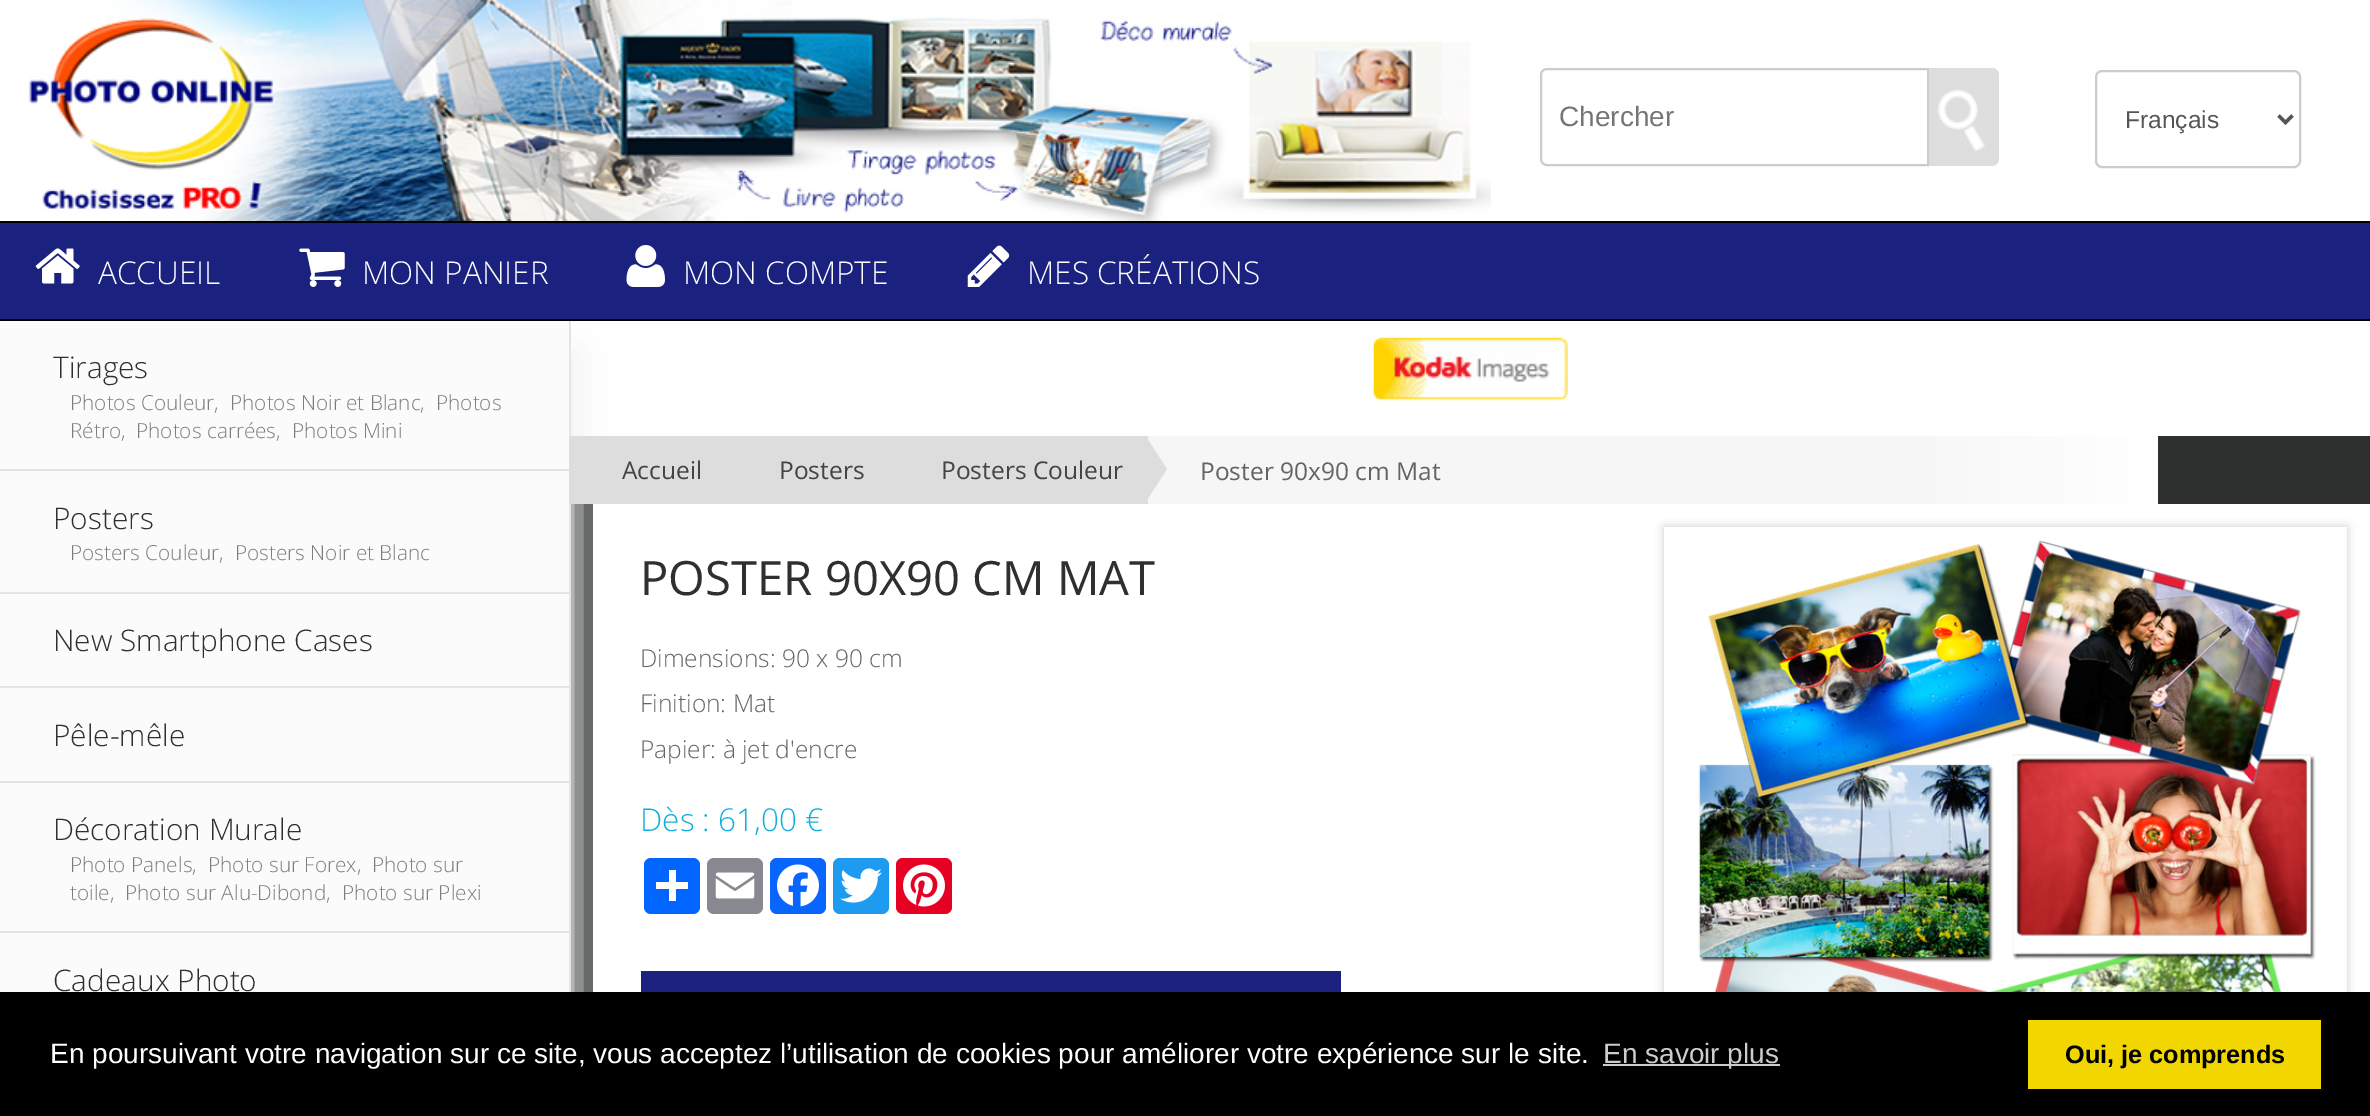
%!PS-Adobe-3.0
%%BoundingBox: 0 0 2370 1116
%%LanguageLevel: 3
%%Pages: 1
%%EndComments
%%BeginProlog
/setalpha { dup .setfillconstantalpha .setstrokeconstantalpha } def
/rrect { 5 dict begin { /r /h /w /y /x } { exch def } forall
  x r add y moveto x w add y 2 copy h add r arct x w add y h add x 1 index r arct
  x y h add x y r arct x y 2 copy exch w add exch r arct closepath end } def
/softshadow { 12 dict begin { /a /b /q /h /w /y /x } { exch def } forall gsave /was 0 def
  9 -2 -9 { dup b mul 4 div /e exch def 1 sub .425 mul 2.718 exch exp 1 add a .99 .min exch div /now exch def
    1 1 now sub 1 was sub div sub setalpha /was now def
    w h .min e 2 mul add 0 gt { x e sub y e sub w e 2 mul add h e 2 mul add
      q e add b .6 mul add w h .min 2 div e add .min 0 .max rrect fill } if } for grestore end } def
/drawimage { 5 dict begin { /h /w /y /x /name } { exch def } forall
  gsave x y translate w h scale
  w h 8 [w 0 0 h 0 0] name (r) file false 3 colorimage grestore end } def
%%EndProlog
%%BeginSetup
<< /PageSize [2370 1116] /PageUsesTransparency true >> setpagedevice
%%EndSetup
%%Page: 1 1
0 .pushpdf14devicefilter
0 1116 translate 1 -1 scale
4 setmiterlimit
0.18 0.188 0.188 setrgbcolor
0 0 2370 1116 rectfill
1 setgray
0 0 2370 221 rectfill
(images/1.raw) 28 0 1463 221 drawimage
0.8 setgray
2 setlinewidth
newpath 1547 69 moveto 1928 69 lineto 1928 165 lineto 1547 165 lineto 1543.5 165 1541 162.5 1541 159 curveto 1541 75 lineto 1541 71.5 1543.5 69 1547 69 curveto closepath stroke
0.867 setgray
newpath 1929 68 moveto 1992 68 lineto 1996 68 1999 71 1999 75 curveto 1999 159 lineto 1999 163 1996 166 1992 166 curveto 1929 166 lineto closepath fill
(images/2.raw) 1937 89 48 62 drawimage
0.8 setgray
2096 71 204 96 6 rrect stroke
0.333 setgray
3.5 setlinewidth
newpath 2278.5 115.5 moveto 2285.5 122.5 lineto 2292.5 115.5 lineto stroke
1 setgray
571 321 1799 115 rectfill
0.945 setgray
72 352 507 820 0 18.5 1 softshadow
0.106 0.129 0.494 setrgbcolor
0 223 2370 96 rectfill
0 setgray
0 221 2370 2 rectfill
0.898 0.894 0.894 setrgbcolor
569 320 2 672 rectfill
0 setgray
0 319 2370 2 rectfill
(images/3.raw) 35 248 45 36 drawimage
(images/4.raw) 299 248 46 39 drawimage
(images/5.raw) 626 245 39 42 drawimage
(images/6.raw) 967 245 43 42 drawimage
0.984 setgray
0 321 569 671 rectfill
0.894 setgray
0 469 569 2 rectfill
0 592 569 2 rectfill
0 686 569 2 rectfill
0 781 569 2 rectfill
0 931 569 2 rectfill
(images/7.raw) 1373 337 195 64 drawimage
gsave newpath 1148 436 moveto 2158 436 lineto 2158 504 lineto 1148 504 lineto closepath clip newpath
<< /ShadingType 2 /ColorSpace /DeviceRGB /Coords [569 470 2158 470] /Extend [true true] /Function << /FunctionType 3 /Domain [0 1] /Functions [<< /FunctionType 2 /Domain [0 1] /C0 [0.965 0.965 0.965] /C1 [0.965 0.965 0.965] /N 1 >> << /FunctionType 2 /Domain [0 1] /C0 [0.965 0.965 0.965] /C1 [1 1 1] /N 1 >>] /Bounds [0.83] /Encode [0 1 0 1] >> >> shfill grestore
0.867 setgray
569 436 579 68 rectfill
gsave
569 436 1589 68 rectclip
newpath 1143 506 moveto 1143 432 lineto 1167 469 lineto closepath fill
grestore
1 setgray
593 504 1777 488 rectfill
0.004 0.4 1 setrgbcolor
644 858 56 56 7 rrect fill
1 setgray
669 870 7 31 rectfill
656 882 32 7 rectfill
0.533 0.537 0.565 setrgbcolor
707 858 56 56 7 rrect fill
(images/8.raw) 715 872 40 27 drawimage
0.031 0.4 1 setrgbcolor
770 858 56 56 7 rrect fill
(images/9.raw) 777 864 42 43 drawimage
0.114 0.608 0.941 setrgbcolor
833 858 56 56 7 rrect fill
(images/10.raw) 840 868 42 35 drawimage
0.902 0 0.137 setrgbcolor
896 858 56 56 7 rrect fill
(images/11.raw) 903 864 42 43 drawimage
0.106 0.129 0.494 setrgbcolor
641 971 700 21 rectfill
0.8 setgray
1664 527 683 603 0 4.5 1 softshadow
1 setgray
1664 527 683 465 rectfill
(images/12.raw) 1698 540 618 452 drawimage
0 setgray
0 992 2370 124 rectfill
0.8 setgray
1603 1064 177 2 rectfill
0.945 0.839 0 setrgbcolor
2028 1020 293 69 rectfill
/LiberationSans-Regular [28 0 0 -28 0 0] selectfont
0.459 setgray
1559 126 moveto (Chercher) show
/LiberationSans-Regular [24.5 0 0 -24.5 0 0] selectfont
0.333 setgray
2125 128 moveto (Français) show
/OpenSans-Light [31.5 0 0 -31.5 0 0] selectfont
1 setgray
98 284 moveto (ACCUEIL) show
362 284 moveto (MON PANIER) show
683 284 moveto (MON COMPTE) show
1027 284 moveto (MES CRÉATIONS) show
/OpenSans-Light [29.75 0 0 -29.75 0 0] selectfont
0.18 0.188 0.188 setrgbcolor
53 378 moveto (Tirages) show
/OpenSans-Light [20.75 0 0 -20.75 0 0] selectfont
0.486 0.494 0.494 setrgbcolor
70 410 moveto (Photos Couleur,) show
230 410 moveto (Photos Noir et Blanc,) show
436 410 moveto (Photos) show
70 438 moveto (Rétro,) show
136 438 moveto (Photos carrées,) show
292 438 moveto (Photos Mini) show
/OpenSans-Light [29.75 0 0 -29.75 0 0] selectfont
0.18 0.188 0.188 setrgbcolor
53 529 moveto (Posters) show
/OpenSans-Light [20.75 0 0 -20.75 0 0] selectfont
0.486 0.494 0.494 setrgbcolor
70 560 moveto (Posters Couleur,) show
235 560 moveto (Posters Noir et Blanc) show
/OpenSans-Light [29.75 0 0 -29.75 0 0] selectfont
0.18 0.188 0.188 setrgbcolor
53 651 moveto (New Smartphone Cases) show
53 746 moveto (Pêle-mêle) show
53 840 moveto (Décoration Murale) show
/OpenSans-Light [20.75 0 0 -20.75 0 0] selectfont
0.486 0.494 0.494 setrgbcolor
70 872 moveto (Photo Panels,) show
208 872 moveto (Photo sur Forex,) show
372 872 moveto (Photo sur) show
70 900 moveto (toile,) show
125 900 moveto (Photo sur Alu-Dibond,) show
342 900 moveto (Photo sur Plexi) show
/OpenSans-Light [29.75 0 0 -29.75 0 0] selectfont
0.18 0.188 0.188 setrgbcolor
53 991 moveto (Cadeaux Photo) show
/OpenSans-Regular [24.5 0 0 -24.5 0 0] selectfont
0.267 setgray
622 479 moveto (Accueil) show
779 479 moveto (Posters) show
941 479 moveto (Posters Couleur) show
0.384 0.396 0.396 setrgbcolor
1200 480 moveto (Poster 90x90 cm Mat) show
/OpenSans-Regular [47.25 0 0 -47.25 0 0] selectfont
0.18 0.188 0.188 setrgbcolor
640 595 moveto (POSTER 90X90 CM MAT) show
/OpenSans-Light [24.5 0 0 -24.5 0 0] selectfont
0.384 0.396 0.396 setrgbcolor
640 667 moveto (Dimensions: 90 x 90 cm) show
640 712 moveto (Finition: Mat) show
640 758 moveto (Papier: à jet d'encre) show
/OpenSans-Light [31.5 0 0 -31.5 0 0] selectfont
0.071 0.686 0.871 setrgbcolor
640 831 moveto (Dès : 61,00 €) show
/LiberationSans-Regular [28 0 0 -28 0 0] selectfont
1 setgray
50 1063 moveto (En poursuivant votre navigation sur ce site, vous acceptez l’utilisation de cookies pour améliorer votre expérience sur le site.) show
0.8 setgray
1603 1063 moveto (En savoir plus) show
/LiberationSans-Bold [25.25 0 0 -25.25 0 0] selectfont
0 setgray
2065 1063 moveto (Oui, je comprends) show
.poppdf14devicefilter showpage
%%EOF
